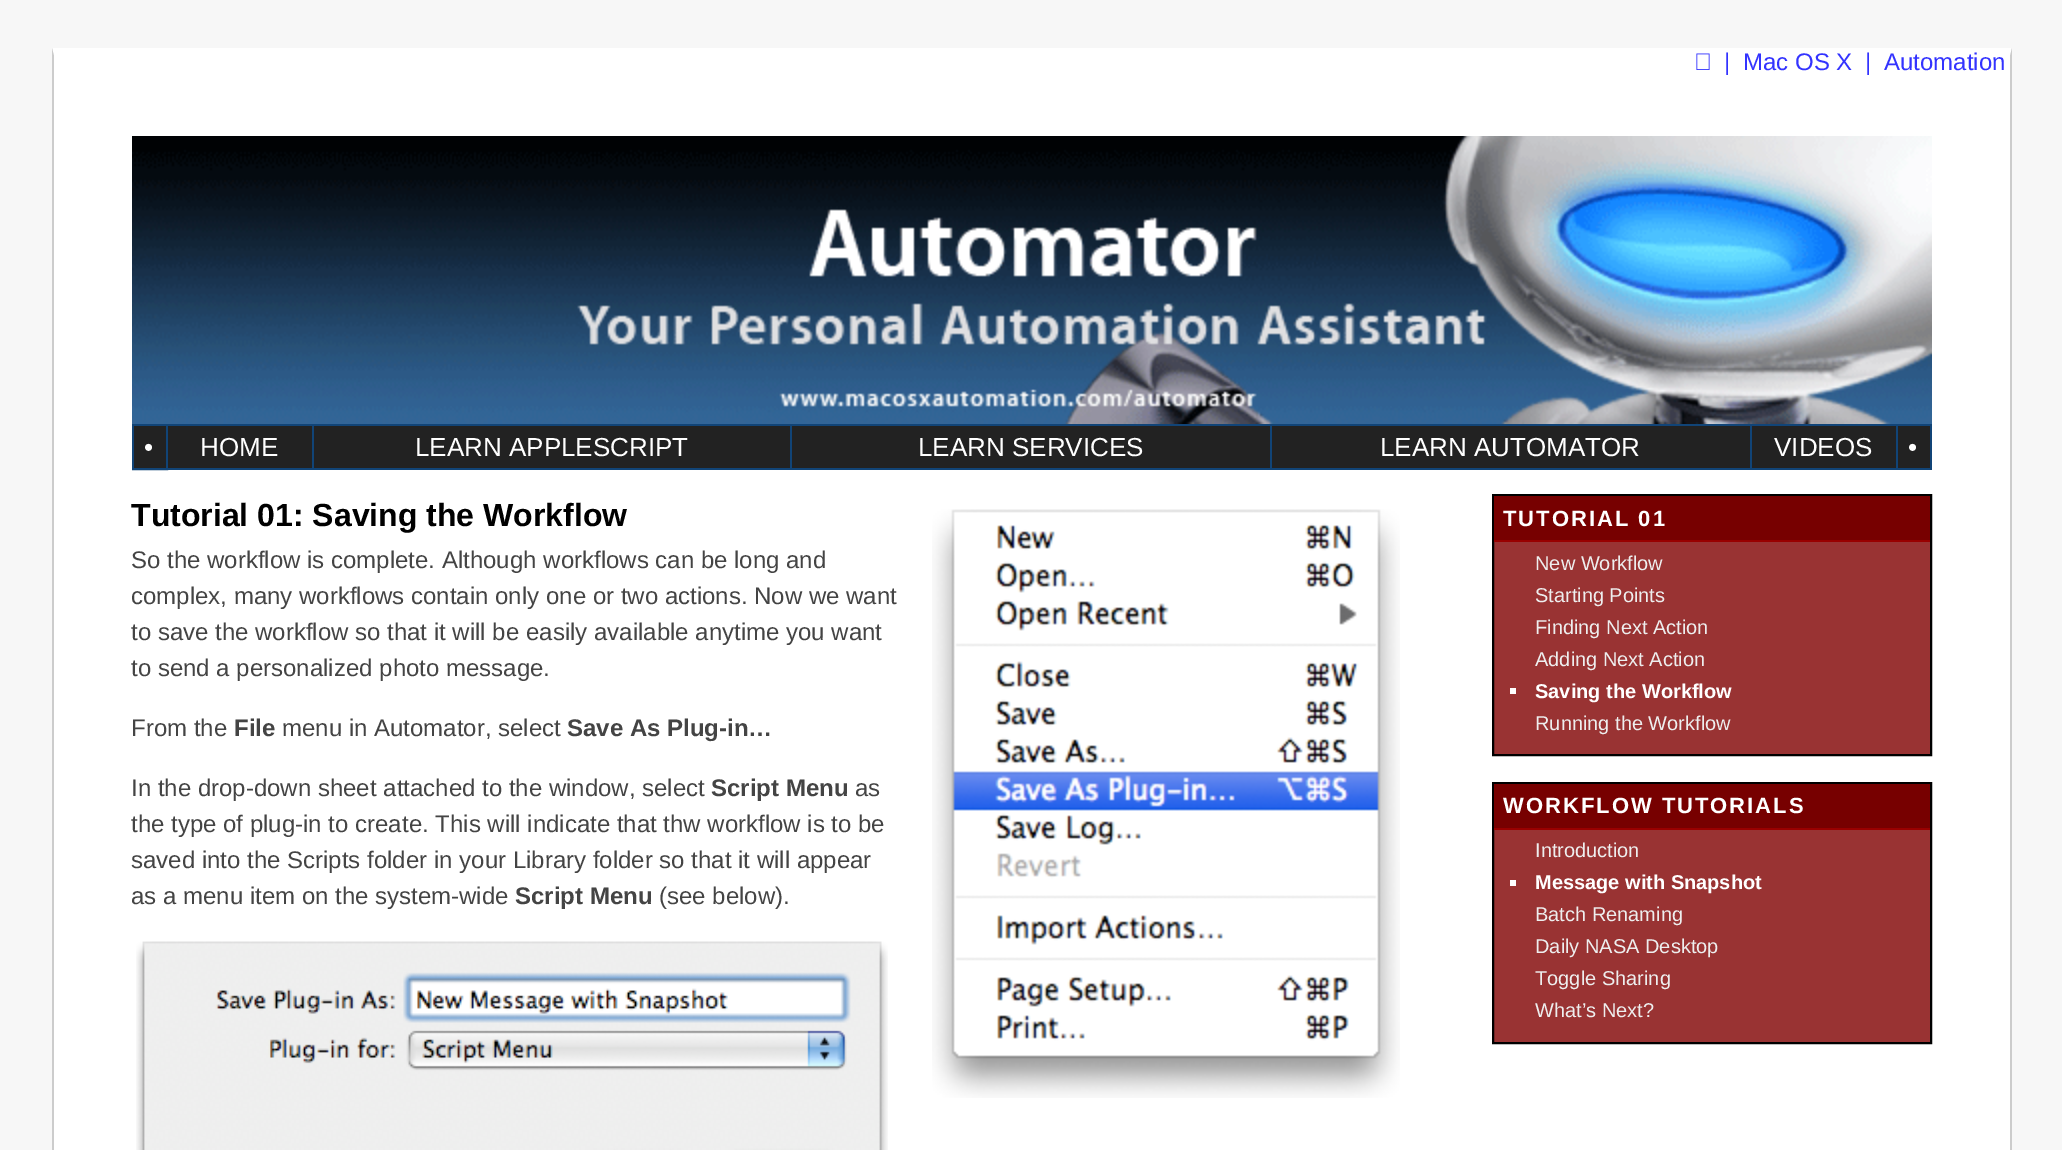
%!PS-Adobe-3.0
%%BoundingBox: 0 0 2062 1150
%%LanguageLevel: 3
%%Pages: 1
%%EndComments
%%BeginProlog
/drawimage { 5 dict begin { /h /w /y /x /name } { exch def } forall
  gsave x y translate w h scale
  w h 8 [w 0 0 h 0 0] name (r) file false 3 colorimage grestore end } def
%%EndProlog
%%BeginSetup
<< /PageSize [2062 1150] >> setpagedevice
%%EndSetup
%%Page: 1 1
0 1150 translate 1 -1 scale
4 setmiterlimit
0.969 setgray
0 0 2062 1150 rectfill
1 setgray
54 56 1956 1094 rectfill
newpath 52 48 moveto 2012 48 lineto 2010 56 lineto 54 56 lineto closepath fill
0.8 setgray
newpath 2012 48 moveto 2012 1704 lineto 2010 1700 lineto 2010 56 lineto closepath fill
newpath 52 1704 moveto 52 48 lineto 54 56 lineto 54 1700 lineto closepath fill
(images/1.raw) 1696 53 14 17 drawimage
(images/2.raw) 132 136 1800 288 drawimage
0.067 0.267 0.467 setrgbcolor
2 setlinewidth
133 425 34 44 rectstroke
0.133 setgray
134 426 32 42 rectfill
0.067 0.267 0.467 setrgbcolor
168 424 1764 2 rectfill
312 424 2 46 rectfill
168 468 146 2 rectfill
0.133 setgray
168 426 144 42 rectfill
0.067 0.267 0.467 setrgbcolor
790 424 2 46 rectfill
314 468 478 2 rectfill
0.133 setgray
314 426 476 42 rectfill
0.067 0.267 0.467 setrgbcolor
1270 424 2 46 rectfill
792 468 480 2 rectfill
0.133 setgray
792 426 478 42 rectfill
0.067 0.267 0.467 setrgbcolor
1750 424 2 46 rectfill
1272 468 480 2 rectfill
0.133 setgray
1272 426 478 42 rectfill
0.067 0.267 0.467 setrgbcolor
1896 424 2 46 rectfill
1752 468 146 2 rectfill
0.133 setgray
1752 426 144 42 rectfill
0.067 0.267 0.467 setrgbcolor
1930 424 2 46 rectfill
1898 468 34 2 rectfill
0.133 setgray
1898 426 32 42 rectfill
(images/3.raw) 932 509 468 589 drawimage
(images/4.raw) 136 941 752 209 drawimage
0.6 0.2 0.2 setrgbcolor
1494 542 436 212 rectfill
0 setgray
1493 495 438 260 rectstroke
0.467 0 0 setrgbcolor
1494 496 436 44 rectfill
0.6 0 0 setrgbcolor
1494 540 436 2 rectfill
1 setgray
1510 688 6 6 rectfill
0.6 0.2 0.2 setrgbcolor
1494 830 436 212 rectfill
0 setgray
1493 783 438 260 rectstroke
0.467 0 0 setrgbcolor
1494 784 436 44 rectfill
0.6 0 0 setrgbcolor
1494 828 436 2 rectfill
1 setgray
1510 880 6 6 rectfill
/LiberationSans-Regular [24 0 0 -24 0 0] selectfont
0.2 0.2 1 setrgbcolor
1724 70 moveto (|) show
1743 70 moveto (Mac OS X) show
1865 70 moveto (|) show
1884 70 moveto (Automation) show
/LiberationSans-Regular [26 0 0 -26 0 0] selectfont
1 setgray
144 456 moveto (•) show
200 456 moveto (HOME) show
415 456 moveto (LEARN APPLESCRIPT) show
918 456 moveto (LEARN SERVICES) show
1380 456 moveto (LEARN AUTOMATOR) show
1774 456 moveto (VIDEOS) show
1908 456 moveto (•) show
/LiberationSans-Bold [32 0 0 -32 0 0] selectfont
0 setgray
131 526 moveto (Tutorial 01: Saving the Workflow) show
/LiberationSans-Regular [24 0 0 -24 0 0] selectfont
0.267 setgray
131 568 moveto (So the workflow is complete. Although workflows can be long and) show
131 604 moveto (complex, many workflows contain only one or two actions. Now we want) show
131 640 moveto (to save the workflow so that it will be easily available anytime you want) show
131 676 moveto (to send a personalized photo message.) show
131 736 moveto (From the) show
/LiberationSans-Bold [24 0 0 -24 0 0] selectfont
234 736 moveto (File) show
/LiberationSans-Regular [24 0 0 -24 0 0] selectfont
282 736 moveto (menu in Automator, select) show
/LiberationSans-Bold [24 0 0 -24 0 0] selectfont
567 736 moveto (Save As Plug-in…) show
/LiberationSans-Regular [24 0 0 -24 0 0] selectfont
131 796 moveto (In the drop-down sheet attached to the window, select) show
/LiberationSans-Bold [24 0 0 -24 0 0] selectfont
711 796 moveto (Script Menu) show
/LiberationSans-Regular [24 0 0 -24 0 0] selectfont
855 796 moveto (as) show
131 832 moveto (the type of plug-in to create. This will indicate that thw workflow is to be) show
131 868 moveto (saved into the Scripts folder in your Library folder so that it will appear) show
131 904 moveto (as a menu item on the system-wide) show
/LiberationSans-Bold [24 0 0 -24 0 0] selectfont
515 904 moveto (Script Menu) show
/LiberationSans-Regular [24 0 0 -24 0 0] selectfont
659 904 moveto (\(see below\).) show
/LiberationSans-Bold [22 0 0 -22 0 0] selectfont
1 setgray
1503 526 moveto 2 0 (TUTORIAL 01) ashow
/LiberationSans-Regular [20 0 0 -20 0 0] selectfont
0.933 setgray
1535 570 moveto (New Workflow) show
1535 602 moveto (Starting Points) show
1535 634 moveto (Finding Next Action) show
1535 666 moveto (Adding Next Action) show
/LiberationSans-Bold [20 0 0 -20 0 0] selectfont
1 setgray
1535 698 moveto (Saving the Workflow) show
/LiberationSans-Regular [20 0 0 -20 0 0] selectfont
0.933 setgray
1535 730 moveto (Running the Workflow) show
/LiberationSans-Bold [22 0 0 -22 0 0] selectfont
1 setgray
1503 813 moveto 2 0 (WORKFLOW TUTORIALS) ashow
/LiberationSans-Regular [20 0 0 -20 0 0] selectfont
0.933 setgray
1535 857 moveto (Introduction) show
/LiberationSans-Bold [20 0 0 -20 0 0] selectfont
1 setgray
1535 889 moveto (Message with Snapshot) show
/LiberationSans-Regular [20 0 0 -20 0 0] selectfont
0.933 setgray
1535 921 moveto (Batch Renaming) show
1535 953 moveto (Daily NASA Desktop) show
1535 985 moveto (Toggle Sharing) show
1535 1017 moveto (What’s Next?) show
showpage
%%EOF
